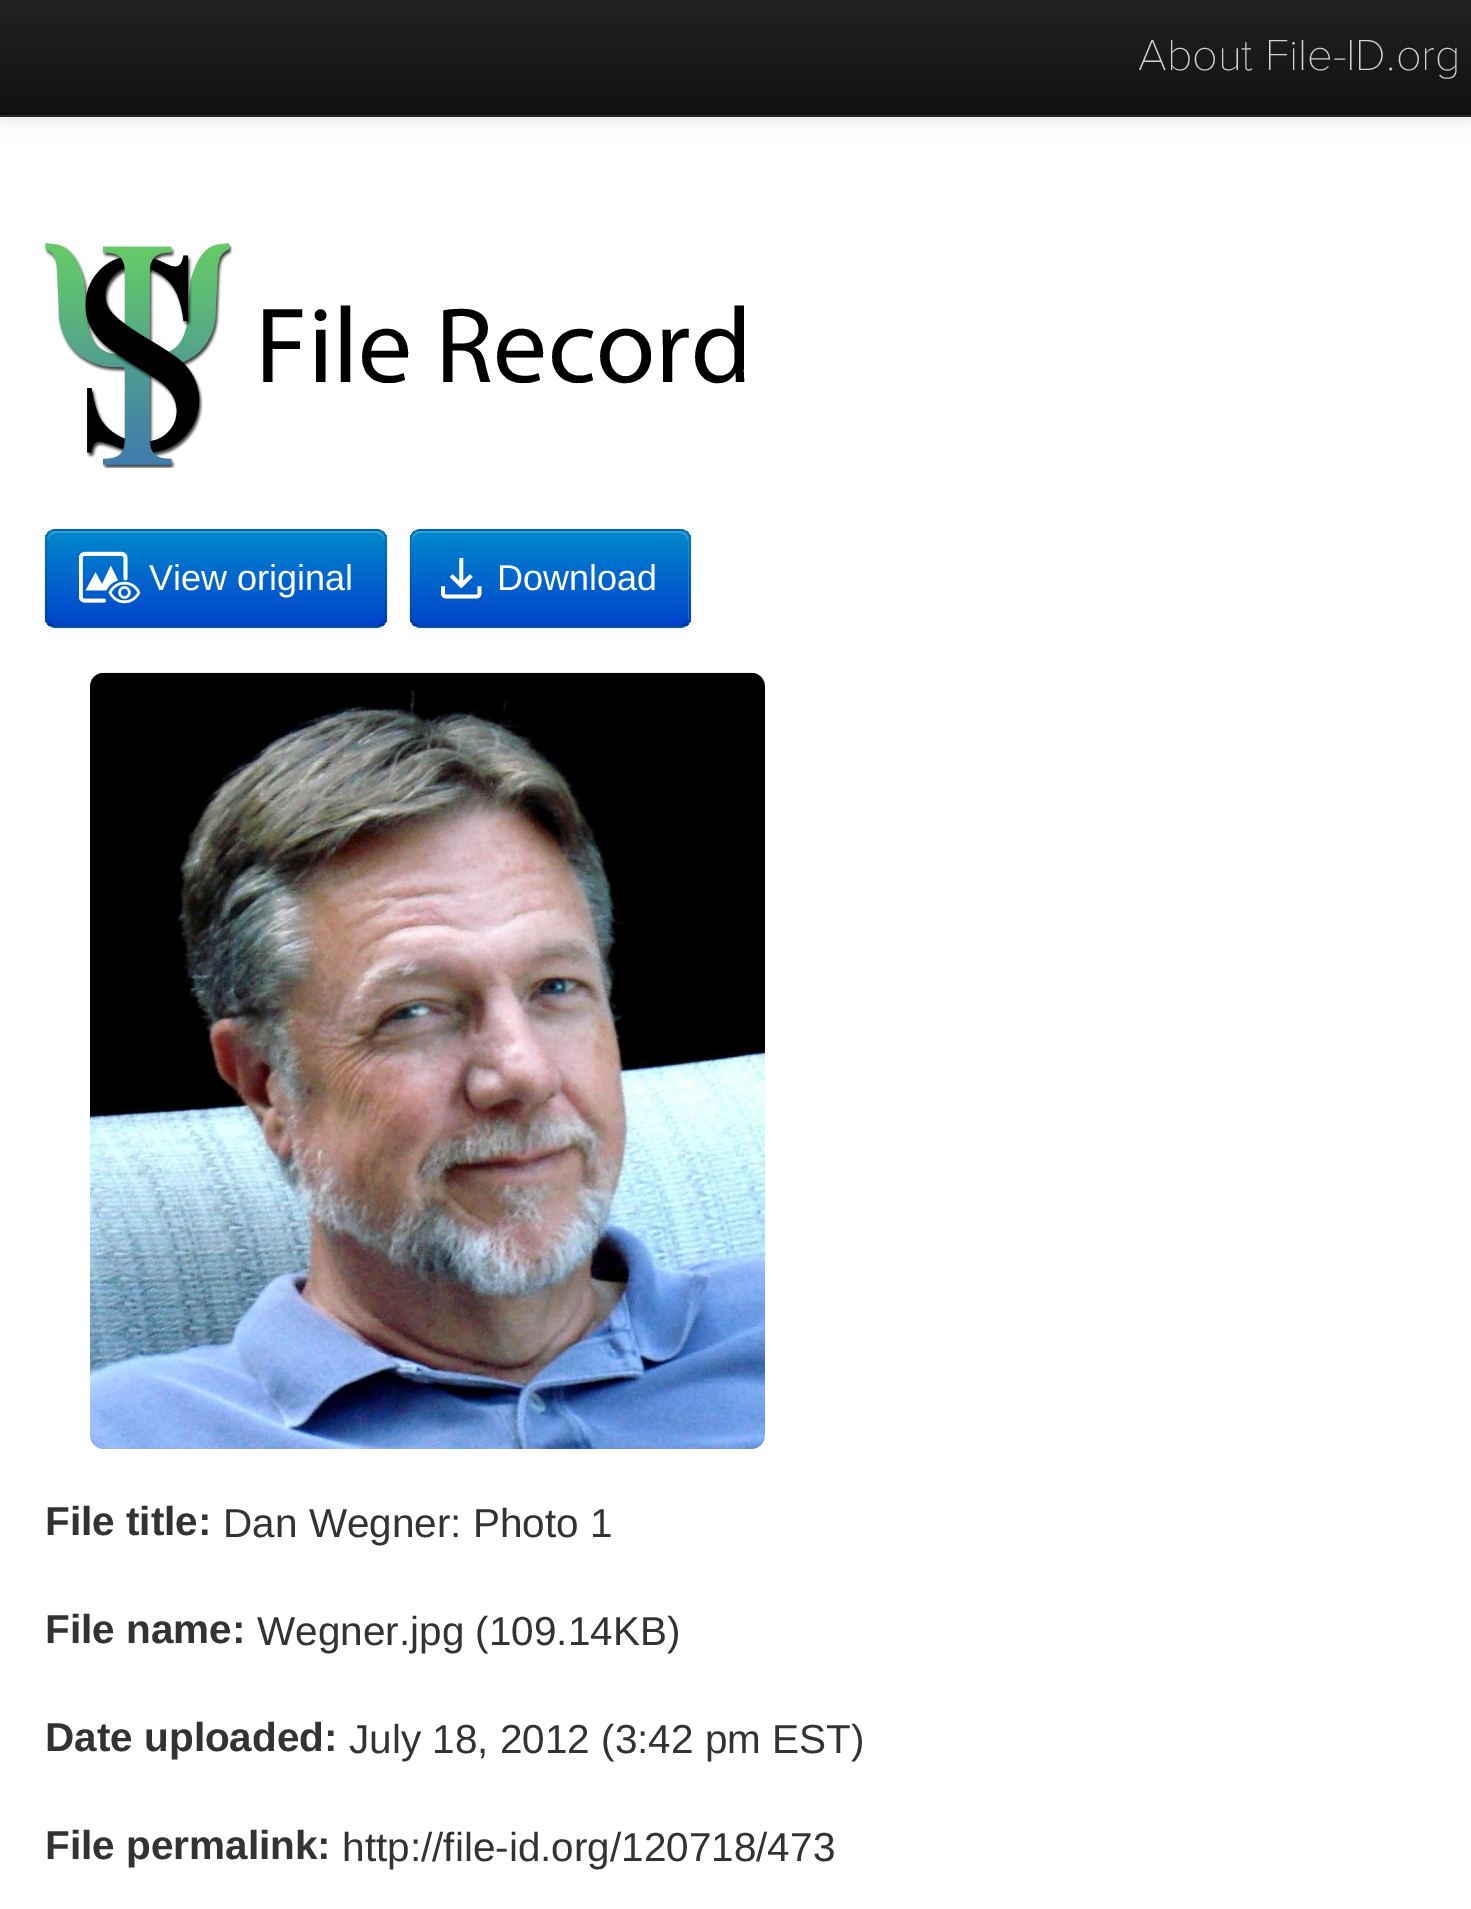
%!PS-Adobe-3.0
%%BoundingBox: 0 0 1471 1909
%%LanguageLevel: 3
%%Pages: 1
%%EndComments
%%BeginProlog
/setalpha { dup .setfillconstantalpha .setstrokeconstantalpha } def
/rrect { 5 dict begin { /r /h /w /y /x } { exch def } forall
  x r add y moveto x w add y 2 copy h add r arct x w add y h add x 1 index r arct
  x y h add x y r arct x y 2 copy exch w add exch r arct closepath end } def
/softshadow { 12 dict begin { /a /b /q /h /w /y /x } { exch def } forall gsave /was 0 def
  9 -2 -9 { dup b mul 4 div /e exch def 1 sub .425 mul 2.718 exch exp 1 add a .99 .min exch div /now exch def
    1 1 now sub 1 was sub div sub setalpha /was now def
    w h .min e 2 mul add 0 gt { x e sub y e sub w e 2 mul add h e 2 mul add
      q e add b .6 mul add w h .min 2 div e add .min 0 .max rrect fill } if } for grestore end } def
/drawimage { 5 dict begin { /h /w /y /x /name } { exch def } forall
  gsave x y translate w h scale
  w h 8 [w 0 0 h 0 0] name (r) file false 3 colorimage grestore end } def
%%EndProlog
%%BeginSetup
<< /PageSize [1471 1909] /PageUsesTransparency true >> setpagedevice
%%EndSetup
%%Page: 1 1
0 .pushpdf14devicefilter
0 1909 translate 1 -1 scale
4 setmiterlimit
1 setgray
0 0 1471 1909 rectfill
0 setgray
0 2 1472 117 0 11 0.1 softshadow
gsave newpath 0 0 moveto 1471 0 lineto 1471 113 lineto 0 113 lineto closepath clip newpath
<< /ShadingType 2 /ColorSpace /DeviceRGB /Coords [736 0 736 115] /Extend [true true] /Function << /FunctionType 2 /Domain [0 1] /C0 [0.133 0.133 0.133] /C1 [0.067 0.067 0.067] /N 1 >> >> shfill grestore
0.059 setgray
0 113 1471 2 rectfill
0.145 setgray
0 115 1471 2 rectfill
(images/1.raw) 45 243 187 225 drawimage
0 setgray
45 531 342 99 11 2 0.05 softshadow
0 0.427 0.8 setrgbcolor
45 529 342 99 11 rrect fill
gsave
45 529 342 99 11 rrect clip newpath
gsave newpath 45 531 moveto 387 531 lineto 387 626 lineto 45 626 lineto closepath clip newpath
<< /ShadingType 2 /ColorSpace /DeviceRGB /Coords [216 531 216 626] /Extend [true true] /Function << /FunctionType 2 /Domain [0 1] /C0 [0 0.533 0.8] /C1 [0 0.267 0.8] /N 1 >> >> shfill grestore
grestore
0.2 setalpha
1 setgray
newpath 56 533 moveto 376 533 lineto 381 533 385 537 385 542 curveto 385 537 383 532 378 531 curveto 54 531 lineto 49 532 47 537 47 542 curveto 47 537 51 533 56 533 curveto closepath fill
0.25 setalpha
0 setgray
2.2 setlinewidth
newpath 383 623.5 moveto 381 625.5 378.5 626.5 376 626.5 curveto 56 626.5 lineto 53.5 626.5 51 625.5 49 623.5 curveto stroke
0.1 setalpha
newpath 49 623.5 moveto 47 622 46 619 46 616.5 curveto 46 540 lineto 46 537.5 47 534.5 49 533 curveto 51 531 53.5 530 56 530 curveto 376 530 lineto 378.5 530 381 531 383 533 curveto 385 534.5 386 537.5 386 540 curveto 386 616.5 lineto 386 619 385 622 383 623.5 curveto stroke
1 setalpha
(images/2.raw) 79 551 62 53 drawimage
410 531 281 99 11 2 0.05 softshadow
0 0.427 0.8 setrgbcolor
410 529 281 99 11 rrect fill
gsave
410 529 281 99 11 rrect clip newpath
gsave newpath 410 531 moveto 691 531 lineto 691 626 lineto 410 626 lineto closepath clip newpath
<< /ShadingType 2 /ColorSpace /DeviceRGB /Coords [550 531 550 626] /Extend [true true] /Function << /FunctionType 2 /Domain [0 1] /C0 [0 0.533 0.8] /C1 [0 0.267 0.8] /N 1 >> >> shfill grestore
grestore
0.2 setalpha
1 setgray
newpath 421 533 moveto 680 533 lineto 684 533 688 537 688 542 curveto 688 619 lineto 688 622 lineto 688 621 689 619 689 617 curveto 689 540 lineto 689 535 685 531 680 531 curveto 421 531 lineto 416 531 412 535 412 540 curveto 412 542 lineto 412 537 416 533 421 533 curveto closepath fill
0.25 setalpha
0 setgray
newpath 686.5 623.5 moveto 685 625.5 682 626.5 679.5 626.5 curveto 421 626.5 lineto 418 626.5 415.5 625.5 413.5 623.5 curveto stroke
0.1 setalpha
newpath 413.5 623.5 moveto 411.5 622 410.5 619 410.5 616.5 curveto 410.5 540 lineto 410.5 537.5 411.5 534.5 413.5 533 curveto 415.5 531 418 530 421 530 curveto 679.5 530 lineto 682 530 685 531 686.5 533 curveto 688.5 534.5 689.5 537.5 689.5 540 curveto 689.5 616.5 lineto 689.5 619 688.5 622 686.5 623.5 curveto stroke
1 setalpha
(images/3.raw) 441 558 41 41 drawimage
(images/4.raw) 90 672 675 777 drawimage
/ProximaNova-Thin [45 0 0 -45 0 0] selectfont
0.827 setgray
1138 70 moveto (About File-ID.org) show
/Myriad-Regular [108 0 0 -108 0 0] selectfont
0 setgray
255 382 moveto (File Record) show
/LiberationSans-Regular [36 0 0 -36 0 0] selectfont
1 setgray
149 590 moveto (View original) show
497 590 moveto (Download) show
/LiberationSans-Bold [40.5 0 0 -40.5 0 0] selectfont
0.2 setgray
45 1535 moveto (File title:) show
/LiberationSans-Regular [40.5 0 0 -40.5 0 0] selectfont
223 1537 moveto (Dan Wegner: Photo 1) show
/LiberationSans-Bold [40.5 0 0 -40.5 0 0] selectfont
45 1643 moveto (File name:) show
/LiberationSans-Regular [40.5 0 0 -40.5 0 0] selectfont
257 1645 moveto (Wegner.jpg \(109.14KB\)) show
/LiberationSans-Bold [40.5 0 0 -40.5 0 0] selectfont
45 1751 moveto (Date uploaded:) show
/LiberationSans-Regular [40.5 0 0 -40.5 0 0] selectfont
349 1753 moveto (July 18, 2012 \(3:42 pm EST\)) show
/LiberationSans-Bold [40.5 0 0 -40.5 0 0] selectfont
45 1859 moveto (File permalink:) show
/LiberationSans-Regular [40.5 0 0 -40.5 0 0] selectfont
342 1861 moveto (http://file-id.org/120718/473) show
.poppdf14devicefilter showpage
%%EOF
